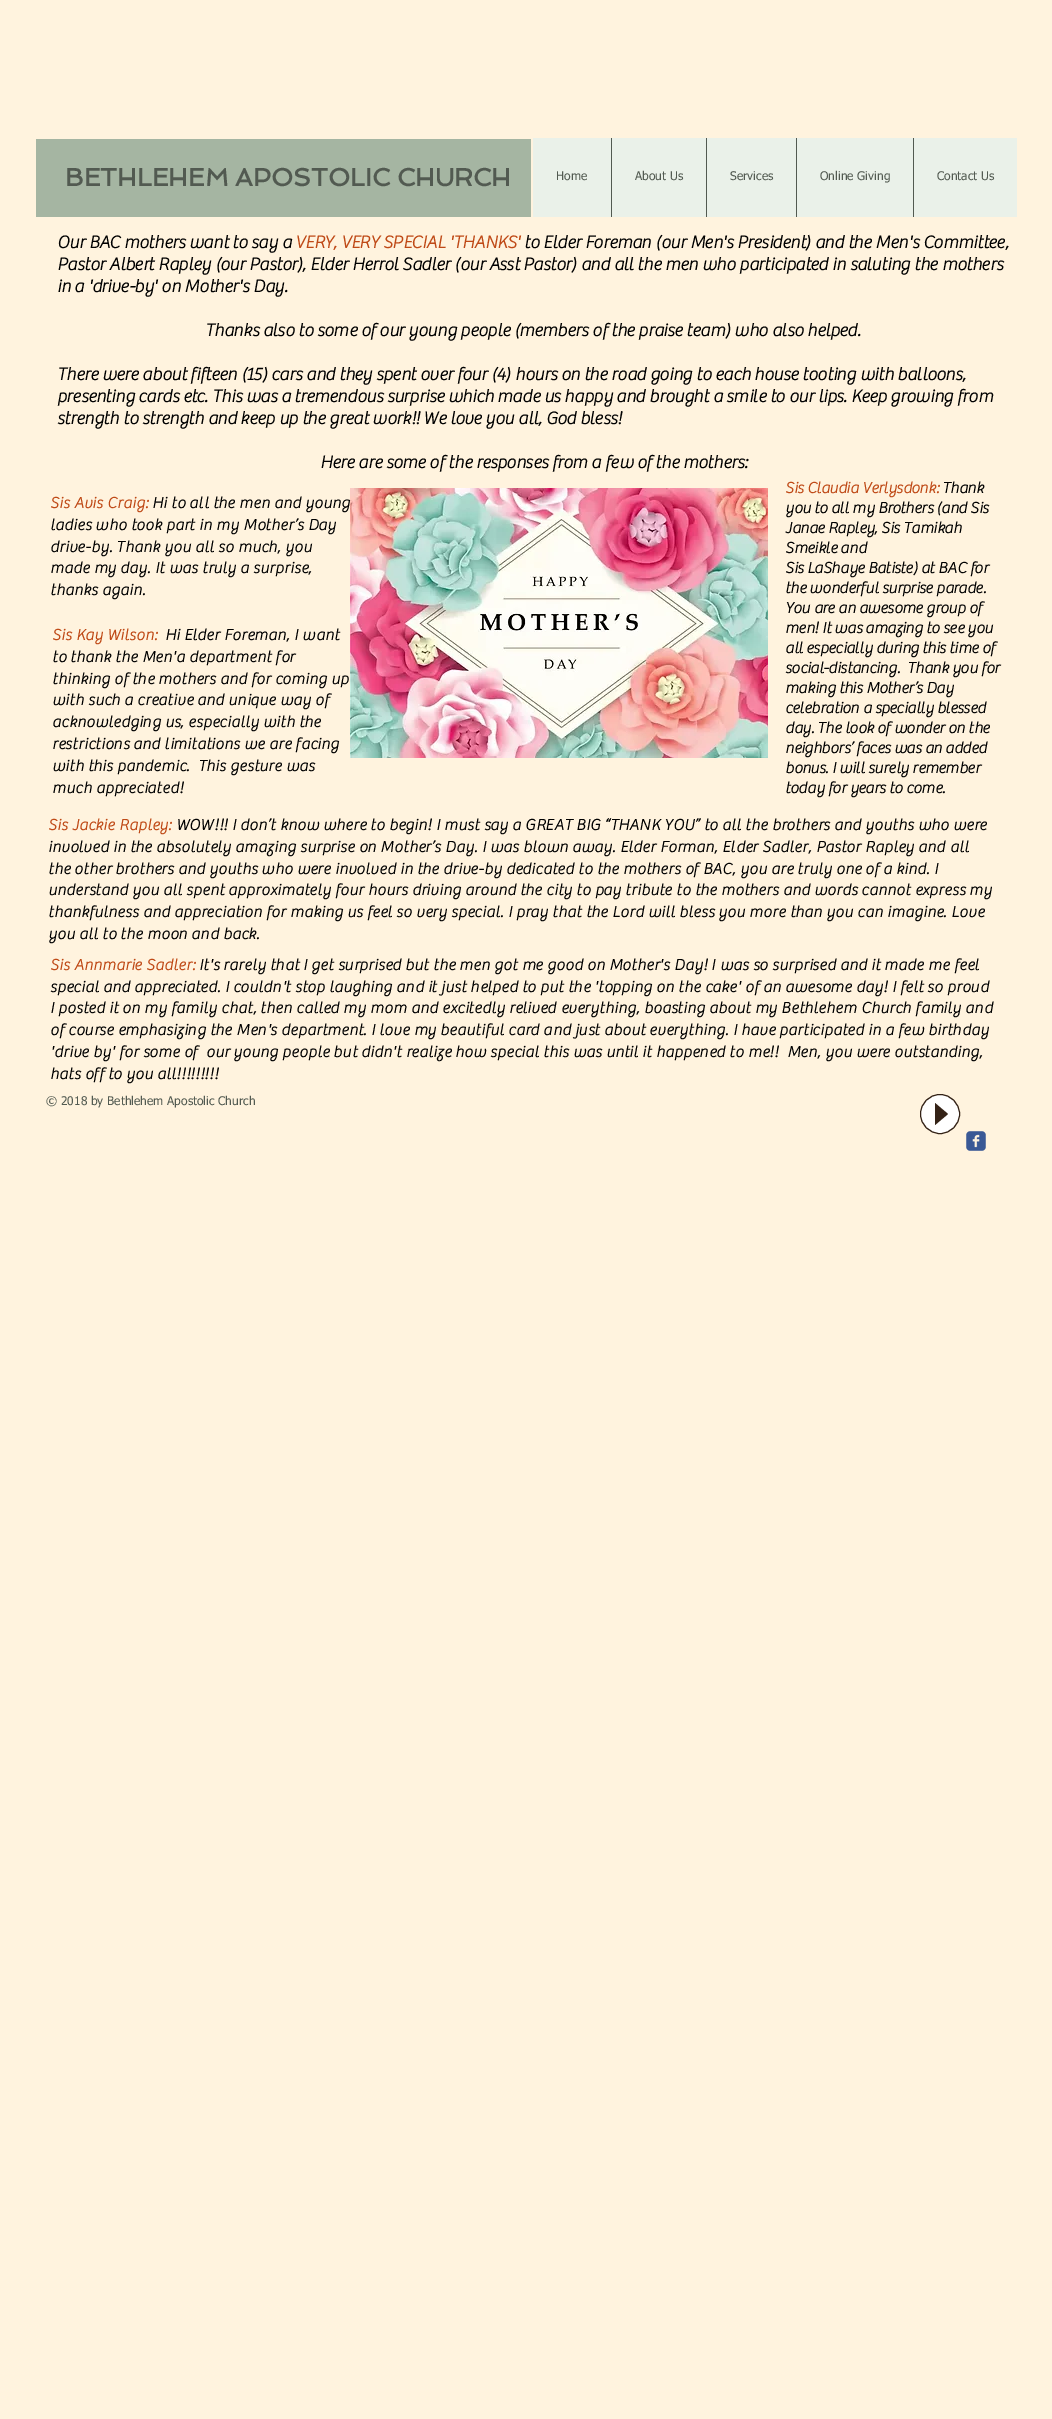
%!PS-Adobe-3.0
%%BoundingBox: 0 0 1052 2419
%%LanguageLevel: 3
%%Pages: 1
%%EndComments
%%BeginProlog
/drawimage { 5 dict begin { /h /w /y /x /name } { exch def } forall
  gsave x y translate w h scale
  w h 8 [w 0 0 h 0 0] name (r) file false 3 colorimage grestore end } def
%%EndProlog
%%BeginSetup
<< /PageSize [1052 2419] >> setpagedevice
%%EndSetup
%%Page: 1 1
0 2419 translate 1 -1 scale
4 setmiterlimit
1 0.953 0.871 setrgbcolor
0 0 1052 2419 rectfill
0.647 0.71 0.635 setrgbcolor
36 139 495 78 rectfill
0.918 0.945 0.914 setrgbcolor
533 138 484 79 rectfill
0.322 0.353 0.318 setrgbcolor
611 138 1 79 rectfill
706 138 1 79 rectfill
796 138 1 79 rectfill
913 138 1 79 rectfill
(images/1.raw) 350 488 418 270 drawimage
1 setgray
newpath 940 1114 19.5 0 360 arc closepath gsave fill grestore
0.204 0.133 0.086 setrgbcolor
stroke
newpath 935 1125 moveto 935 1103 lineto 948 1114 lineto closepath fill
(images/2.raw) 966 1131 20 20 drawimage
/Spinnaker-Bold [25 0 0 -25 0 0] selectfont
0.322 0.353 0.318 setrgbcolor
65 186 moveto (BETHLEHEM APOSTOLIC CHURCH) show
/tahoma-Regular [12 0 0 -12 0 0] selectfont
556 180 moveto (Home) show
635 180 moveto (About Us) show
730 180 moveto (Services) show
820 180 moveto (Online Giving) show
937 180 moveto (Contact Us) show
/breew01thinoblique-Bold [18 0 0 -18 0 0] selectfont
0 setgray
57 248 moveto (Our BAC mothers want to say a) show
0.749 0.286 0.086 setrgbcolor
295 248 moveto (VERY, VERY SPECIAL 'THANKS') show
0 setgray
524 248 moveto (to Elder Foreman \(our Men's President\) and the Men's Committee,) show
57 270 moveto (Pastor Albert Rapley \(our Pastor\), Elder Herrol Sadler \(our Asst Pastor\) and all the men who participated in saluting the mothers) show
57 292 moveto (in a 'drive-by' on Mother's Day.) show
205 336 moveto (Thanks also to some of our young people \(members of the praise team\) who also helped.) show
57 380 moveto (There were about fifteen \(15\) cars and they spent over four \(4\) hours on the road going to each house tooting with balloons,) show
57 402 moveto (presenting cards etc. This was a tremendous surprise which made us happy and brought a smile to our lips. Keep growing from) show
57 424 moveto (strength to strength and keep up the great work!!) show
423 424 moveto (We love you all, God bless!) show
320 468 moveto (Here are some of the responses from a few of the mothers:) show
/breew01thinoblique-Bold [16 0 0 -16 0 0] selectfont
0.749 0.286 0.086 setrgbcolor
50 508 moveto 0.48 0 (Sis Avis Craig:) ashow
0 setgray
152 508 moveto 0.48 0 (Hi to all the men and young) ashow
50 530 moveto 0.48 0 (ladies who took part in my Mother’s Day) ashow
50 552 moveto 0.48 0 (drive-by. Thank you all so much, you) ashow
50 573 moveto 0.48 0 (made my day. It was truly a surprise,) ashow
50 595 moveto 0.48 0 (thanks again.) ashow
0.749 0.286 0.086 setrgbcolor
785 493 moveto (Sis Claudia Verlysdonk:) show
0 setgray
942 493 moveto (Thank) show
785 513 moveto (you to all my Brothers \(and Sis) show
785 533 moveto (Janae Rapley, Sis Tamikah) show
785 553 moveto (Smeikle and) show
785 573 moveto (Sis LaShaye Batiste\) at BAC for) show
785 593 moveto (the wonderful surprise parade.) show
785 613 moveto (You are an awesome group of) show
785 633 moveto (men! It was amazing to see you) show
785 653 moveto (all especially during this time of) show
785 673 moveto (social-distancing.  Thank you for) show
785 693 moveto (making this Mother’s Day) show
785 713 moveto (celebration a specially blessed) show
785 733 moveto (day. The look of wonder on the) show
785 753 moveto (neighbors’ faces was an added) show
785 773 moveto (bonus. I will surely remember) show
785 793 moveto (today for years to come.) show
0.749 0.286 0.086 setrgbcolor
52 640 moveto 0.48 0 (Sis Kay Wilson:) ashow
0 setgray
165 640 moveto 0.48 0 (Hi Elder Foreman, I want) ashow
52 662 moveto 0.48 0 (to thank the Men'a department for) ashow
52 684 moveto 0.48 0 (thinking of the mothers and for coming up) ashow
52 705 moveto 0.48 0 (with such a creative and unique way of) ashow
52 727 moveto 0.48 0 (acknowledging us, especially with the) ashow
52 749 moveto 0.48 0 (restrictions and limitations we are facing) ashow
52 771 moveto 0.48 0 (with this pandemic.  This gesture was) ashow
52 793 moveto 0.48 0 (much appreciated!) ashow
0.749 0.286 0.086 setrgbcolor
48 830 moveto 0.48 0 (Sis Jackie Rapley:) ashow
0 setgray
176 830 moveto 0.48 0 (WOW!!! I don’t know where to begin! I must say a GREAT BIG “THANK YOU” to all the brothers and youths who were) ashow
48 852 moveto 0.48 0 (involved in the absolutely amazing surprise on Mother’s Day. I was blown away. Elder Forman, Elder Sadler, Pastor Rapley and all) ashow
48 874 moveto 0.48 0 (the other brothers and youths who were involved in the drive-by dedicated to the mothers of BAC, you are truly one of a kind. I) ashow
48 895 moveto 0.48 0 (understand you all spent approximately four hours driving around the city to pay tribute to the mothers and words cannot express my) ashow
48 917 moveto 0.48 0 (thankfulness and appreciation for making us feel so very special. I pray that the Lord will bless you more than you can imagine. Love) ashow
48 939 moveto 0.48 0 (you all to the moon and back.) ashow
0.749 0.286 0.086 setrgbcolor
50 970 moveto 0.48 0 (Sis Annmarie Sadler:) ashow
0 setgray
199 970 moveto 0.48 0 (It's rarely that I get surprised but the men got me good on Mother's Day! I was so surprised and it made me feel) ashow
50 992 moveto 0.48 0 (special and appreciated. I couldn't stop laughing and it just helped to put the 'topping on the cake' of an awesome day! I felt so proud) ashow
50 1013 moveto 0.48 0 (I posted it on my family chat, then called my mom and excitedly relived everything, boasting about my Bethlehem Church family and) ashow
50 1035 moveto 0.48 0 (of course emphasizing the Men's department. I love my beautiful card and just about everything. I have participated in a few birthday) ashow
50 1057 moveto 0.48 0 ('drive by' for some of  our young people but didn't realize how special this was until it happened to me!!  Men, you were outstanding,) ashow
50 1079 moveto 0.48 0 (hats off to you all!!!!!!!!!) ashow
/tahoma-Regular [12 0 0 -12 0 0] selectfont
0.322 0.353 0.318 setrgbcolor
46 1105 moveto (© 2018 by Bethlehem Apostolic Church) show
showpage
%%EOF
